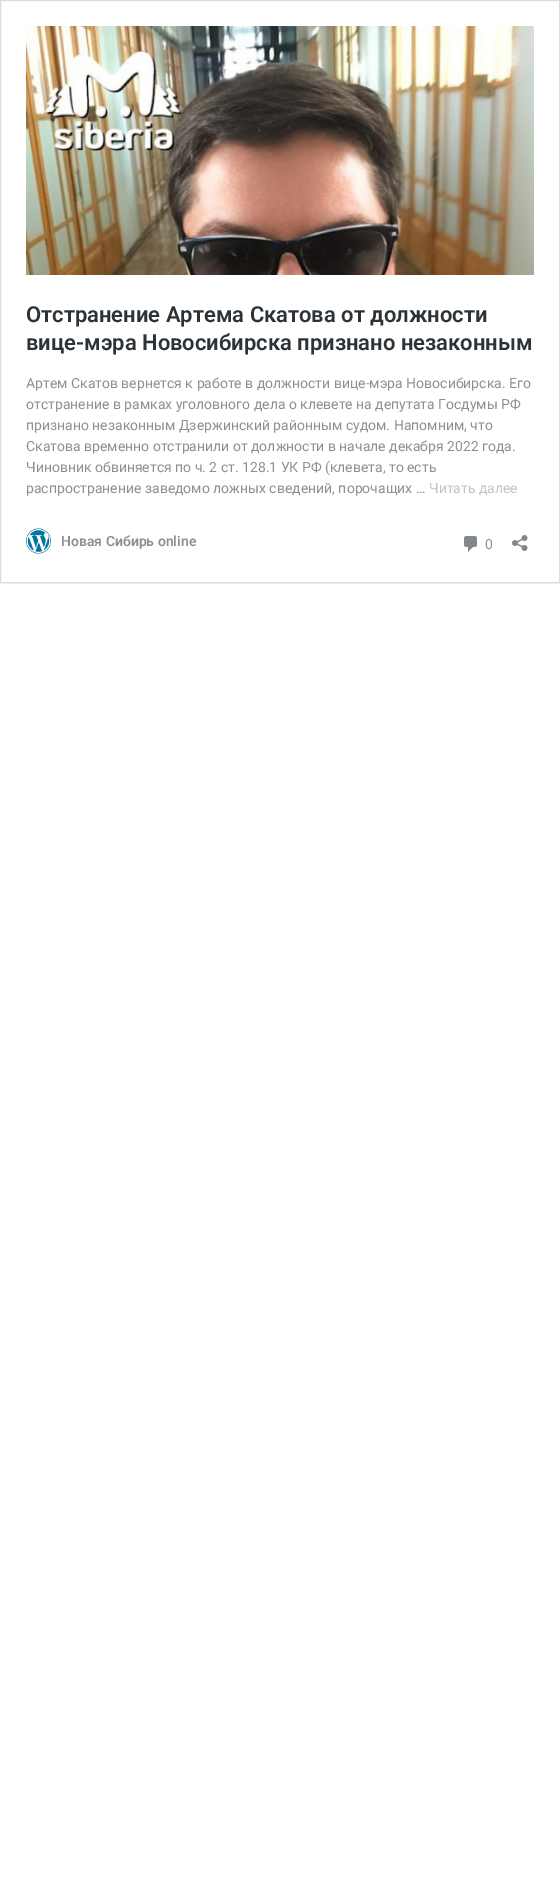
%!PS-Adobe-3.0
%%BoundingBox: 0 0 560 1892
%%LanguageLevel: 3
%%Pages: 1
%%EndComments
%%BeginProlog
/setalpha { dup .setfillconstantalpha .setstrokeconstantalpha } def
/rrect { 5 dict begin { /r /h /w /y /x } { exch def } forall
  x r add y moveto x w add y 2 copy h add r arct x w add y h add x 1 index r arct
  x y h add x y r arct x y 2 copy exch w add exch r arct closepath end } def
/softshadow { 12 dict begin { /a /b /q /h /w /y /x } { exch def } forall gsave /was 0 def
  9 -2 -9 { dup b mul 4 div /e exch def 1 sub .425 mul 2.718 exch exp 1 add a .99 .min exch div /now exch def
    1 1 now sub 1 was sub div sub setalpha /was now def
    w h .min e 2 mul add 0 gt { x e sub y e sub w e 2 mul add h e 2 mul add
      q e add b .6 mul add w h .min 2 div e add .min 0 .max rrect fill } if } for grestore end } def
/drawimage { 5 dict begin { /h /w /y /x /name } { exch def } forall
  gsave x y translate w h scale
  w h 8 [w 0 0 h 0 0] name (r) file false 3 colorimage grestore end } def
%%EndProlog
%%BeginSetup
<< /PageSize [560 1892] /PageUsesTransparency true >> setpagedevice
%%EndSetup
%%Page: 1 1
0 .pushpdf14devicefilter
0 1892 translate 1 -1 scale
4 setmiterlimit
1 setgray
0 0 560 1892 rectfill
gsave
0 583 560 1 rectclip
0 setgray
0 1 560 583 0 0.5 0.05 softshadow
grestore
0.863 0.863 0.871 setrgbcolor
0.5 0.5 559 582 rectstroke
(images/1.raw) 26 26 508 249 drawimage
(images/2.raw) 26 528 25 26 drawimage
(images/3.raw) 464 536 13 16 drawimage
(images/4.raw) 512 535 16 16 drawimage
/Roboto-SemiBold [22 0 0 -22 0 0] selectfont
0.173 0.2 0.22 setrgbcolor
26 322 moveto (Отстранение Артема Скатова от должности) show
26 350 moveto (вице-мэра Новосибирска признано незаконным) show
/Roboto-Regular [14 0 0 -14 0 0] selectfont
0.549 0.561 0.58 setrgbcolor
26 388 moveto (Артем Скатов вернется к работе в должности вице-мэра Новосибирска. Его) show
26 409 moveto (отстранение в рамках уголовного дела о клевете на депутата Госдумы РФ) show
26 430 moveto (признано незаконным Дзержинский районным судом. Напомним, что) show
26 451 moveto (Скатова временно отстранили от должности в начале декабря 2022 года.) show
26 472 moveto (Чиновник обвиняется по ч. 2 ст. 128.1 УК РФ \(клевета, то есть) show
26 493 moveto (распространение заведомо ложных сведений, порочащих …) show
0.765 0.769 0.78 setrgbcolor
429 493 moveto (Читать далее) show
/Roboto-SemiBold [14 0 0 -14 0 0] selectfont
0.549 0.561 0.58 setrgbcolor
61 546 moveto (Новая Сибирь online) show
/Roboto-Regular [14 0 0 -14 0 0] selectfont
485 549 moveto (0) show
.poppdf14devicefilter showpage
%%EOF
